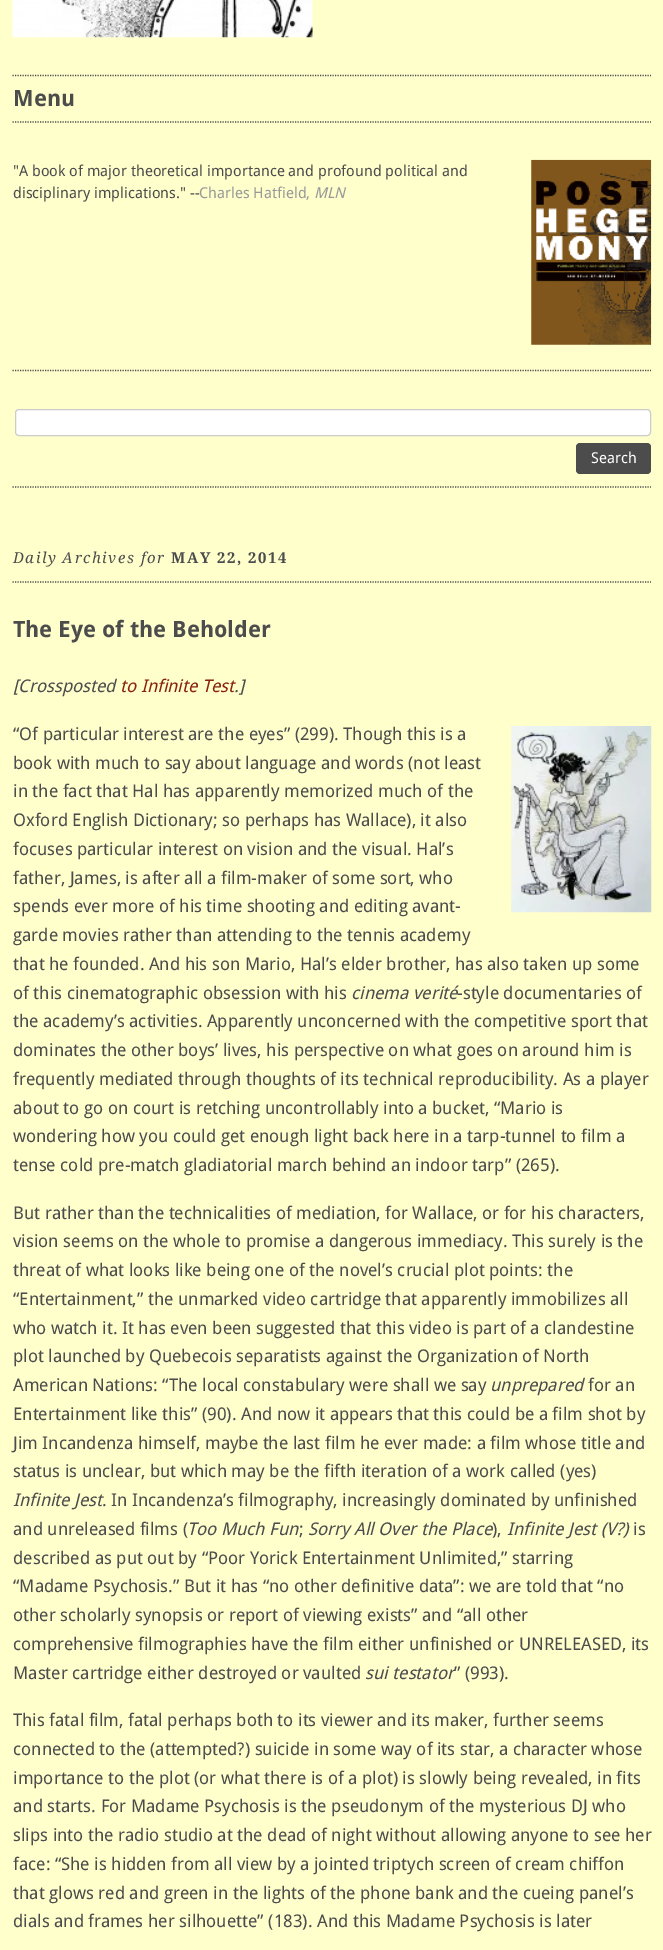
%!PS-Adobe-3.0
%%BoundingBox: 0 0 663 1950
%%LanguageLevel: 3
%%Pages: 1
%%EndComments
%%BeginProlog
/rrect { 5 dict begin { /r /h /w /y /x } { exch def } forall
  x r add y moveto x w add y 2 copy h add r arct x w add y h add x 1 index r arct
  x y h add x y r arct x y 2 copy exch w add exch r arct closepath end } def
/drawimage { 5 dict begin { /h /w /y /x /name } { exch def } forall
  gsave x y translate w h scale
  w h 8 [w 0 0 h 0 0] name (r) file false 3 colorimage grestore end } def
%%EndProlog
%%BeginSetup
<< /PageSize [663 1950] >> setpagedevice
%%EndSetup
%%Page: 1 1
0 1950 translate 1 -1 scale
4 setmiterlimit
1 1 0.8 setrgbcolor
0 0 663 1950 rectfill
(images/1.raw) 12 0 301 38 drawimage
0.298 setgray
1.2 setlinewidth
[1.25 1.25] 0 setdash
newpath 12.5 122 moveto 651 122 lineto stroke
newpath 12.5 75.5 moveto 651 75.5 lineto stroke
newpath 12.5 370.5 moveto 651 370.5 lineto stroke
(images/2.raw) 531 159 121 186 drawimage
newpath 12.5 487 moveto 651 487 lineto stroke
1 setgray
15.5 409.5 635 26 3.5 rrect gsave fill grestore
0.8 setgray
1 setlinewidth
[] 0 setdash
stroke
0.298 setgray
576 443 75 31 4 rrect fill
1.2 setlinewidth
[1.25 1.25] 0 setdash
newpath 12.5 582 moveto 651 582 lineto stroke
(images/3.raw) 511 726 141 187 drawimage
/DroidSans-Bold [22.5 0 0 -22.5 0 0] selectfont
13 106 moveto (Menu) show
/DroidSans-Regular [15 0 0 -15 0 0] selectfont
13 176 moveto ("A book of major theoretical importance and profound political and) show
13 198 moveto (disciplinary implications." --) show
0.6 setgray
199 198 moveto (Charles Hatfield,) show
/DroidSans-Italic [15 0 0 -15 0 0] selectfont
314 198 moveto (MLN) show
/DroidSans-Regular [15 0 0 -15 0 0] selectfont
1 setgray
591 463 moveto (Search) show
/DroidSerif-Italic [15 0 0 -15 0 0] selectfont
0.298 setgray
13 563 moveto 1.5 0 (Daily Archives for) ashow
/DroidSerif-Bold [15 0 0 -15 0 0] selectfont
171 563 moveto 1.5 0 (MAY 22, 2014) ashow
/DroidSans-Bold [22.5 0 0 -22.5 0 0] selectfont
13 637 moveto (The Eye of the Beholder) show
/DroidSans-Italic [17.5 0 0 -17.5 0 0] selectfont
13 692 moveto ([Crossposted) show
0.533 0.133 0.067 setrgbcolor
120 692 moveto (to Infinite Test) show
0.298 setgray
234 692 moveto (.]) show
/DroidSans-Regular [17.5 0 0 -17.5 0 0] selectfont
13 740 moveto (“Of particular interest are the eyes” \(299\). Though this is a) show
13 769 moveto (book with much to say about language and words \(not least) show
13 797 moveto (in the fact that Hal has apparently memorized much of the) show
13 826 moveto (Oxford English Dictionary; so perhaps has Wallace\), it also) show
13 855 moveto (focuses particular interest on vision and the visual. Hal’s) show
13 884 moveto (father, James, is after all a film-maker of some sort, who) show
13 912 moveto (spends ever more of his time shooting and editing avant-) show
13 941 moveto (garde movies rather than attending to the tennis academy) show
13 970 moveto (that he founded. And his son Mario, Hal’s elder brother, has also taken up some) show
13 999 moveto (of this cinematographic obsession with his) show
/DroidSans-Italic [17.5 0 0 -17.5 0 0] selectfont
351 999 moveto (cinema verité) show
/DroidSans-Regular [17.5 0 0 -17.5 0 0] selectfont
457 999 moveto (-style documentaries of) show
13 1027 moveto (the academy’s activities. Apparently unconcerned with the competitive sport that) show
13 1056 moveto (dominates the other boys’ lives, his perspective on what goes on around him is) show
13 1085 moveto (frequently mediated through thoughts of its technical reproducibility. As a player) show
13 1114 moveto (about to go on court is retching uncontrollably into a bucket, “Mario is) show
13 1142 moveto (wondering how you could get enough light back here in a tarp-tunnel to film a) show
13 1171 moveto (tense cold pre-match gladiatorial march behind an indoor tarp” \(265\).) show
13 1219 moveto (But rather than the technicalities of mediation, for Wallace, or for his characters,) show
13 1247 moveto (vision seems on the whole to promise a dangerous immediacy. This surely is the) show
13 1276 moveto (threat of what looks like being one of the novel’s crucial plot points: the) show
13 1305 moveto (“Entertainment,” the unmarked video cartridge that apparently immobilizes all) show
13 1334 moveto (who watch it. It has even been suggested that this video is part of a clandestine) show
13 1362 moveto (plot launched by Quebecois separatists against the Organization of North) show
13 1391 moveto (American Nations: “The local constabulary were shall we say) show
/DroidSans-Italic [17.5 0 0 -17.5 0 0] selectfont
490 1391 moveto (unprepared) show
/DroidSans-Regular [17.5 0 0 -17.5 0 0] selectfont
588 1391 moveto (for an) show
13 1420 moveto (Entertainment like this” \(90\). And now it appears that this could be a film shot by) show
13 1449 moveto (Jim Incandenza himself, maybe the last film he ever made: a film whose title and) show
13 1477 moveto (status is unclear, but which may be the fifth iteration of a work called \(yes\)) show
/DroidSans-Italic [17.5 0 0 -17.5 0 0] selectfont
13 1506 moveto (Infinite Jest) show
/DroidSans-Regular [17.5 0 0 -17.5 0 0] selectfont
102 1506 moveto (. In Incandenza’s filmography, increasingly dominated by unfinished) show
13 1535 moveto (and unreleased films \() show
/DroidSans-Italic [17.5 0 0 -17.5 0 0] selectfont
187 1535 moveto (Too Much Fun) show
/DroidSans-Regular [17.5 0 0 -17.5 0 0] selectfont
299 1535 moveto (;) show
/DroidSans-Italic [17.5 0 0 -17.5 0 0] selectfont
308 1535 moveto (Sorry All Over the Place) show
/DroidSans-Regular [17.5 0 0 -17.5 0 0] selectfont
492 1535 moveto (\),) show
/DroidSans-Italic [17.5 0 0 -17.5 0 0] selectfont
507 1535 moveto (Infinite Jest \(V?\)) show
/DroidSans-Regular [17.5 0 0 -17.5 0 0] selectfont
633 1535 moveto (is) show
13 1564 moveto (described as put out by “Poor Yorick Entertainment Unlimited,” starring) show
13 1592 moveto (“Madame Psychosis.” But it has “no other definitive data”: we are told that “no) show
13 1621 moveto (other scholarly synopsis or report of viewing exists” and “all other) show
13 1650 moveto (comprehensive filmographies have the film either unfinished or UNRELEASED, its) show
13 1679 moveto (Master cartridge either destroyed or vaulted) show
/DroidSans-Italic [17.5 0 0 -17.5 0 0] selectfont
365 1679 moveto (sui testator) show
/DroidSans-Regular [17.5 0 0 -17.5 0 0] selectfont
454 1679 moveto (” \(993\).) show
13 1726 moveto (This fatal film, fatal perhaps both to its viewer and its maker, further seems) show
13 1755 moveto (connected to the \(attempted?\) suicide in some way of its star, a character whose) show
13 1784 moveto (importance to the plot \(or what there is of a plot\) is slowly being revealed, in fits) show
13 1812 moveto (and starts. For Madame Psychosis is the pseudonym of the mysterious DJ who) show
13 1841 moveto (slips into the radio studio at the dead of night without allowing anyone to see her) show
13 1870 moveto (face: “She is hidden from all view by a jointed triptych screen of cream chiffon) show
13 1899 moveto (that glows red and green in the lights of the phone bank and the cueing panel’s) show
13 1927 moveto (dials and frames her silhouette” \(183\). And this Madame Psychosis is later) show
showpage
%%EOF
